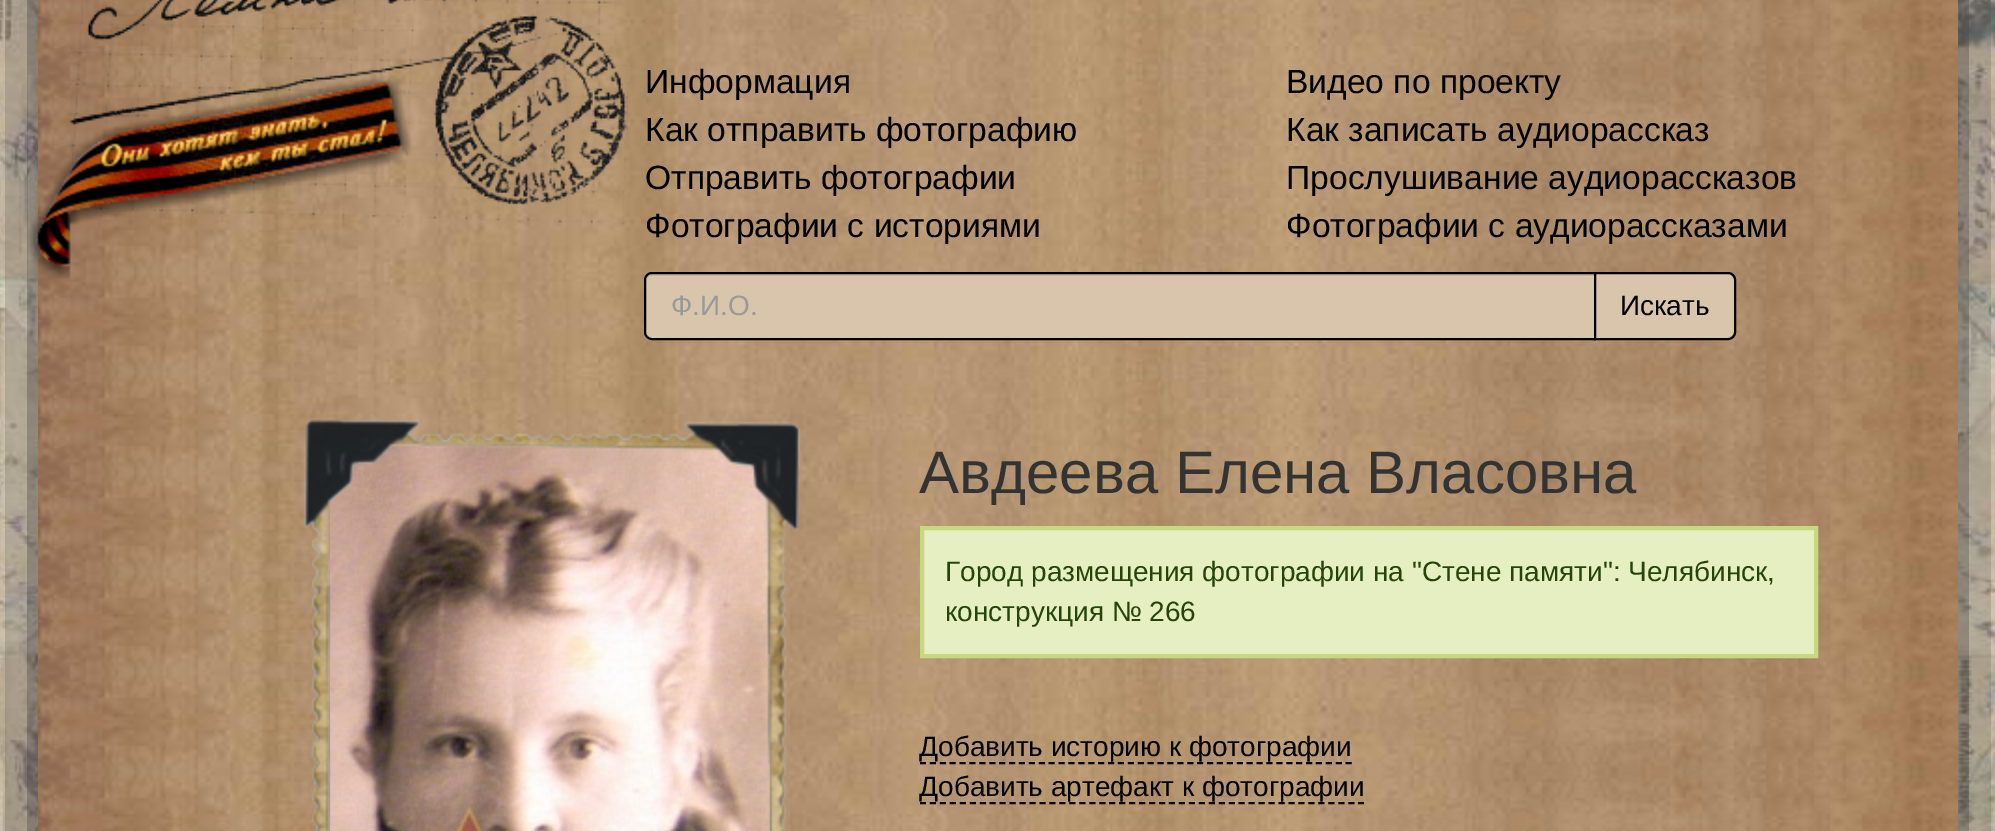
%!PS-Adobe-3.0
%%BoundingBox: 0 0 1995 831
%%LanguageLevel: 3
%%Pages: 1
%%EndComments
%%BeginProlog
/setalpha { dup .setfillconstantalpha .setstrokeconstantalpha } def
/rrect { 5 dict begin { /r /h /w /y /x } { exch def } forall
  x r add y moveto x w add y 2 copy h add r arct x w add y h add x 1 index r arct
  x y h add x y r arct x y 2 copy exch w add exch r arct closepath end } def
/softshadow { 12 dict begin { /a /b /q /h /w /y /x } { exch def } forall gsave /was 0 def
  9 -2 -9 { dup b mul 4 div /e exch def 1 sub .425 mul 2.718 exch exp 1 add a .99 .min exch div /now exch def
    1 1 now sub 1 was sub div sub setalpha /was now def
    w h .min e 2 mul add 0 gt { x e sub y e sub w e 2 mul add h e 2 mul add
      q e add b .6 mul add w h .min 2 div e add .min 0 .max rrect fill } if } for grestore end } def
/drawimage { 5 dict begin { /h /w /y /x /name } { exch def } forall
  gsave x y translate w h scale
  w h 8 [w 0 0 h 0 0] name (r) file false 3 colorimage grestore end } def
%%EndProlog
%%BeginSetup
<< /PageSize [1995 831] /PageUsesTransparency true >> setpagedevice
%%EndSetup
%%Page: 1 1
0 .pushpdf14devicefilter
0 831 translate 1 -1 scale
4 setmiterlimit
1 setgray
0 0 1995 831 rectfill
(images/1.raw) 0 0 1995 831 drawimage
0.2 setgray
38 -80 1920 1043 0 44 1 softshadow
(images/2.raw) 38 0 1920 831 drawimage
(images/3.raw) 68 0 560 226 drawimage
(images/4.raw) 28 75 384 204 drawimage
0.851 0.773 0.675 setrgbcolor
newpath 652 272 moveto 1596 272 lineto 1596 340 lineto 652 340 lineto 647.5 340 644 336.5 644 332 curveto 644 280 lineto 644 275.5 647.5 272 652 272 curveto closepath fill
0.788 0.714 0.624 setrgbcolor
newpath 652 276 moveto 1594 276 lineto 1594 274 lineto 652 274 lineto 647 274 646 278 646 282 curveto 646 279 649 276 652 276 curveto closepath fill
0 setgray
2 setlinewidth
newpath 652 273 moveto 1595 273 lineto 1595 339 lineto 652 339 lineto 648 339 645 336 645 332 curveto 645 280 lineto 645 276 648 273 652 273 curveto closepath stroke
0.851 0.773 0.675 setrgbcolor
newpath 1595 273 moveto 1728 273 lineto 1732 273 1735 276 1735 280 curveto 1735 332 lineto 1735 336 1732 339 1728 339 curveto 1595 339 lineto closepath gsave fill grestore
0 setgray
stroke
(images/6.raw) 330 440 440 391 drawimage
(images/5.raw) 303 418 498 413 drawimage
0.902 0.937 0.761 setrgbcolor
newpath 922 528 moveto 1816 528 lineto 1816 656 lineto 922 656 lineto closepath gsave fill grestore
0.776 0.847 0.502 setrgbcolor
4 setlinewidth
stroke
0 setgray
2 setlinewidth
[6 3.9] 0 setdash
newpath 920 763 moveto 1352 763 lineto stroke
[6 3.96] 0 setdash
newpath 920 803 moveto 1364 803 lineto stroke
/LiberationSans-Regular [33.6 0 0 -33.6 0 0] selectfont
645 93 moveto (Информация) show
1286 93 moveto (Видео по проекту) show
645 141 moveto (Как отправить фотографию) show
1286 141 moveto (Как записать аудиорассказ) show
645 189 moveto (Отправить фотографии) show
1286 189 moveto (Прослушивание аудиорассказов) show
645 237 moveto (Фотографии с историями) show
1286 237 moveto (Фотографии с аудиорассказами) show
/LiberationSans-Regular [28 0 0 -28 0 0] selectfont
0.6 setgray
671 315 moveto (Ф.И.О.) show
0 setgray
1620 315 moveto (Искать) show
/LiberationSans-Regular [60 0 0 -60 0 0] selectfont
0.2 setgray
919 493 moveto (Авдеева Елена Власовна) show
/LiberationSans-Regular [28 0 0 -28 0 0] selectfont
0.149 0.267 0.035 setrgbcolor
945 581 moveto (Город размещения фотографии на "Стене памяти": Челябинск,) show
945 621 moveto (конструкция № 266) show
0 setgray
919 756 moveto (Добавить историю к фотографии) show
919 796 moveto (Добавить артефакт к фотографии) show
.poppdf14devicefilter showpage
%%EOF
